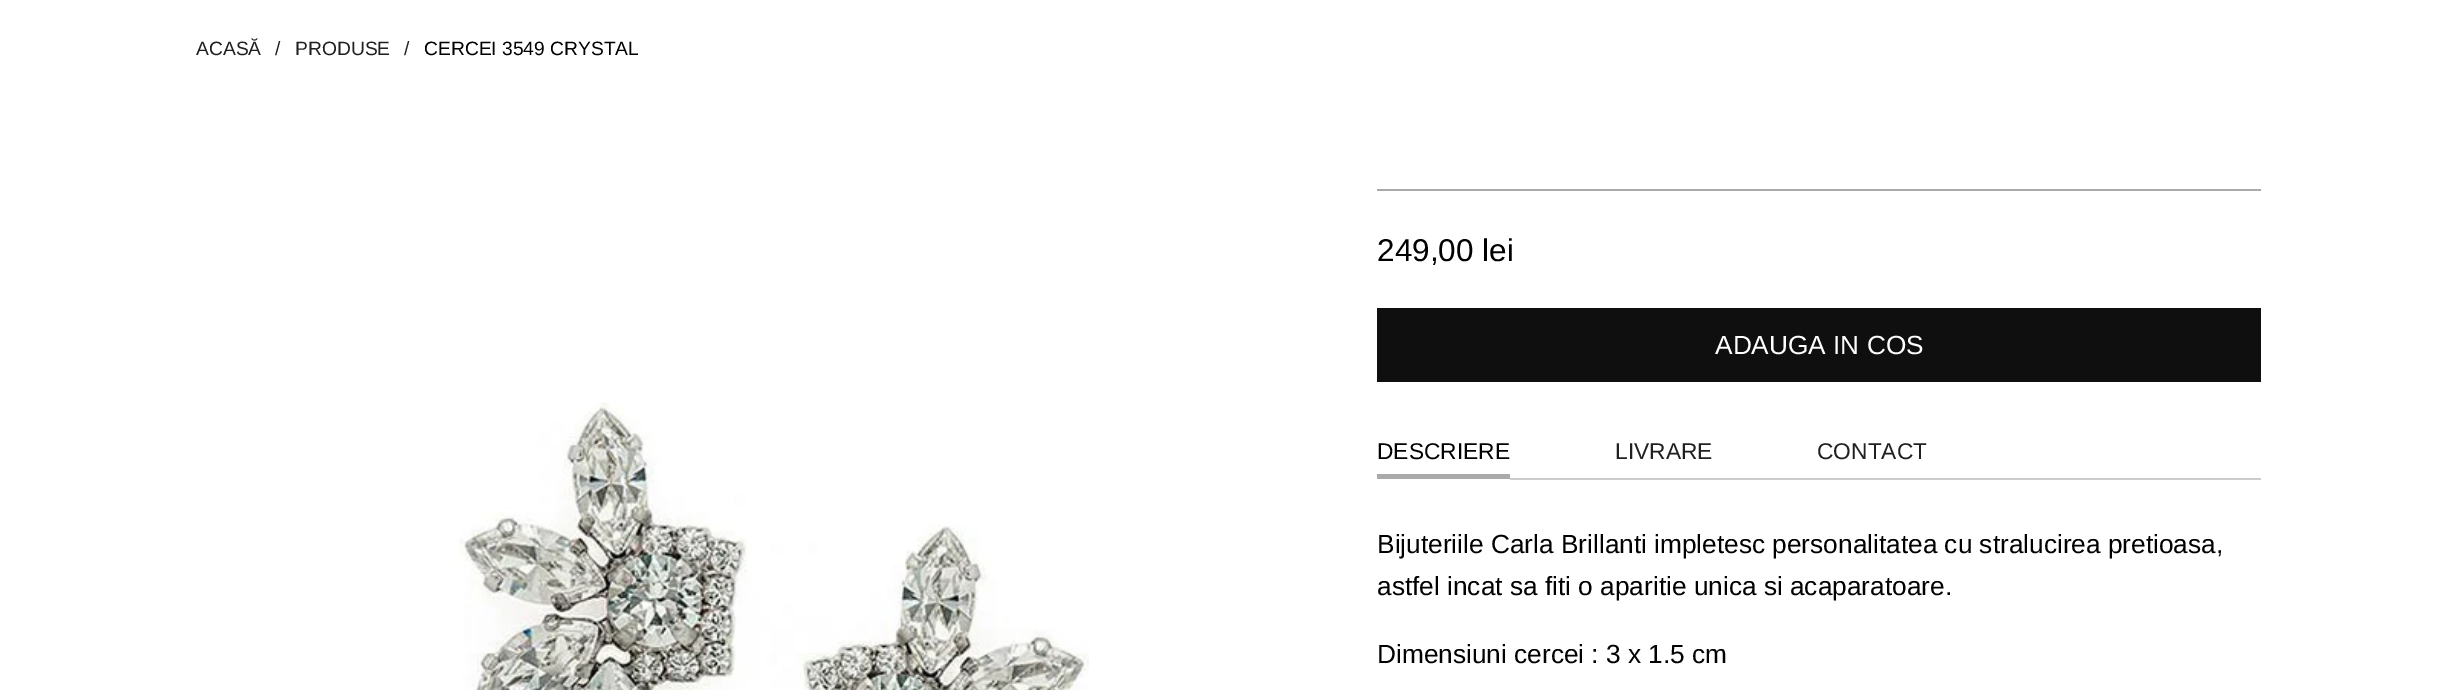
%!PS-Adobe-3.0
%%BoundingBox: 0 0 2456 690
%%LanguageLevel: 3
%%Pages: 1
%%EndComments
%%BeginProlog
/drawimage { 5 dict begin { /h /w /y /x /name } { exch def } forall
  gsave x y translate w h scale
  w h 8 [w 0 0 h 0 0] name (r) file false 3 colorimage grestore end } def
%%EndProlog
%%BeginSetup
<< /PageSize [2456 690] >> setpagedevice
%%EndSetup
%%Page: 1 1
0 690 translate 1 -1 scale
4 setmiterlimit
1 setgray
0 0 2456 690 rectfill
(images/1.raw) 454 402 635 288 drawimage
0.667 setgray
1377 189 884 2 rectfill
0.059 setgray
1377 308 884 74 rectfill
0.8 setgray
1510 478 751 2 rectfill
0.667 setgray
1377 474 133 5 rectfill
/LiberationSans-Regular [19.25 0 0 -19.25 0 0] selectfont
0.125 setgray
196 55 moveto (ACASĂ) show
275 55 moveto (/) show
295 55 moveto (PRODUSE) show
404 55 moveto (/) show
0 setgray
424 55 moveto (CERCEI 3549 CRYSTAL) show
/LiberationSans-Regular [31.5 0 0 -31.5 0 0] selectfont
1377 261 moveto (249,00 lei) show
/LiberationSans-Regular [26.25 0 0 -26.25 0 0] selectfont
1 setgray
1715 354 moveto (ADAUGA IN COS) show
/LiberationSans-Regular [22.75 0 0 -22.75 0 0] selectfont
0 setgray
1377 459 moveto (DESCRIERE) show
0.125 setgray
1615 459 moveto (LIVRARE) show
1817 459 moveto (CONTACT) show
/LiberationSans-Regular [26.25 0 0 -26.25 0 0] selectfont
0 setgray
1377 553 moveto (Bijuteriile Carla Brillanti impletesc personalitatea cu stralucirea pretioasa,) show
1377 595 moveto (astfel incat sa fiti o aparitie unica si acaparatoare.) show
1377 663 moveto (Dimensiuni cercei : 3 x 1.5 cm) show
showpage
%%EOF
